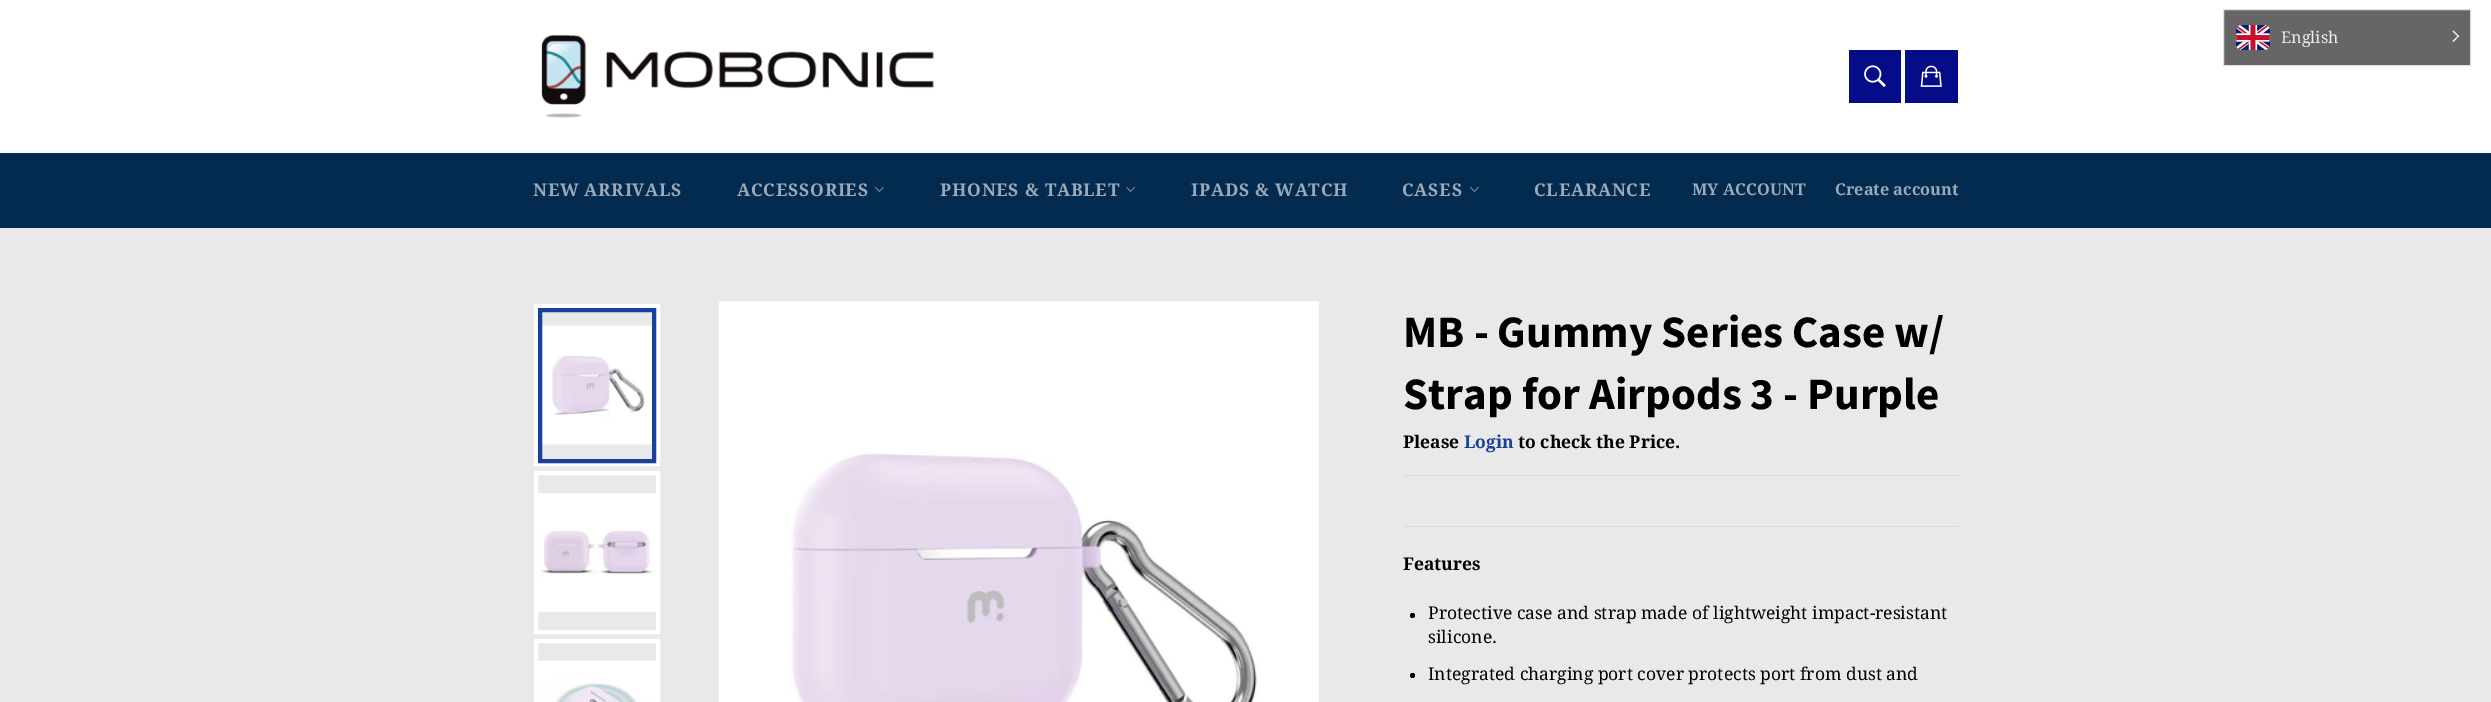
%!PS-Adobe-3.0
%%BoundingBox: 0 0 2491 702
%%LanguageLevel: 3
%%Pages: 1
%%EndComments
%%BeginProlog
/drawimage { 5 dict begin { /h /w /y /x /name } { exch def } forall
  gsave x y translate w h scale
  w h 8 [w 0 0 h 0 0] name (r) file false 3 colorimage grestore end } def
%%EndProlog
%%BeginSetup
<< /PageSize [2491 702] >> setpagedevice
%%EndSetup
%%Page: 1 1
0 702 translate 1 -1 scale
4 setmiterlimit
0.914 setgray
0 0 2491 702 rectfill
1 setgray
0 0 2491 153 rectfill
0.4 setgray
newpath 2223.5 9.5 moveto 2470.5 9.5 lineto 2470.5 65.5 lineto 2223.5 65.5 lineto closepath gsave fill grestore
0.878 setgray
stroke
(images/1.raw) 2236 25 34 25 drawimage
0.933 setgray
newpath 2453.5 30.5 moveto 2459 36 lineto 2458.5 37 lineto 2452.5 31.5 lineto closepath fill
newpath 2458.5 35.5 moveto 2459 36 lineto 2453.5 42 lineto 2452.5 41 lineto closepath fill
(images/2.raw) 541 34 393 84 drawimage
0.02 0.047 0.529 setrgbcolor
1849 50 52 53 rectfill
(images/3.raw) 1864 65 22 22 drawimage
1905 50 53 53 rectfill
(images/4.raw) 1920 65 22 22 drawimage
0.012 0.169 0.314 setrgbcolor
0 154 2491 74 rectfill
0.016 0.22 0.412 setrgbcolor
0 153 2491 1 rectfill
(images/5.raw) 875 186 9 6 drawimage
(images/6.raw) 1126 186 9 6 drawimage
(images/5.raw) 1470 186 9 6 drawimage
1 setgray
4 setlinewidth
536 306 122 158 rectstroke
(images/7.raw) 542 325 110 120 drawimage
0.094 0.255 0.612 setrgbcolor
540 310 114 151 rectstroke
1 setgray
536 473 122 159 rectstroke
(images/8.raw) 538 493 118 119 drawimage
536 641 122 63 rectstroke
(images/9.raw) 538 660 118 42 drawimage
(images/10.raw) 718 301 601 401 drawimage
0.843 0.851 0.855 setrgbcolor
1404 475 555 1 rectfill
1404 526 555 1 rectfill
0 setgray
newpath 1412.5 615.5 2.5 0 360 arc closepath fill
newpath 1412.5 675.5 2.5 0 360 arc closepath fill
/DroidSerif-Regular [16.25 0 0 -16.25 0 0] selectfont
0.933 setgray
2281 43 moveto (English) show
/DroidSerif-Bold [17.5 0 0 -17.5 0 0] selectfont
0.604 0.667 0.725 setrgbcolor
533 196 moveto 0.75 0 (NEW ARRIVALS) ashow
737 196 moveto 0.75 0 (ACCESSORIES) ashow
940 196 moveto 0.75 0 (PHONES & TABLET) ashow
1191 196 moveto 0.75 0 (IPADS & WATCH) ashow
1402 196 moveto 0.75 0 (CASES) ashow
1534 196 moveto 0.75 0 (CLEARANCE) ashow
/DroidSerif-Bold [16.25 0 0 -16.25 0 0] selectfont
1692 195 moveto (MY ACCOUNT) show
1835 195 moveto (Create account) show
/SourceSansPro-Bold [45 0 0 -45 0 0] selectfont
0 setgray
1403 347 moveto (MB - Gummy Series Case w/) show
1403 409 moveto (Strap for Airpods 3 - Purple) show
/DroidSerif-Bold [17.5 0 0 -17.5 0 0] selectfont
1403 448 moveto (Please) show
0.094 0.255 0.612 setrgbcolor
1464 448 moveto (Login) show
0 setgray
1518 448 moveto (to check the Price.) show
1403 570 moveto (Features) show
/DroidSerif-Regular [17.5 0 0 -17.5 0 0] selectfont
1428 619 moveto (Protective case and strap made of lightweight impact-resistant) show
1428 643 moveto (silicone.) show
1428 680 moveto (Integrated charging port cover protects port from dust and) show
showpage
%%EOF
